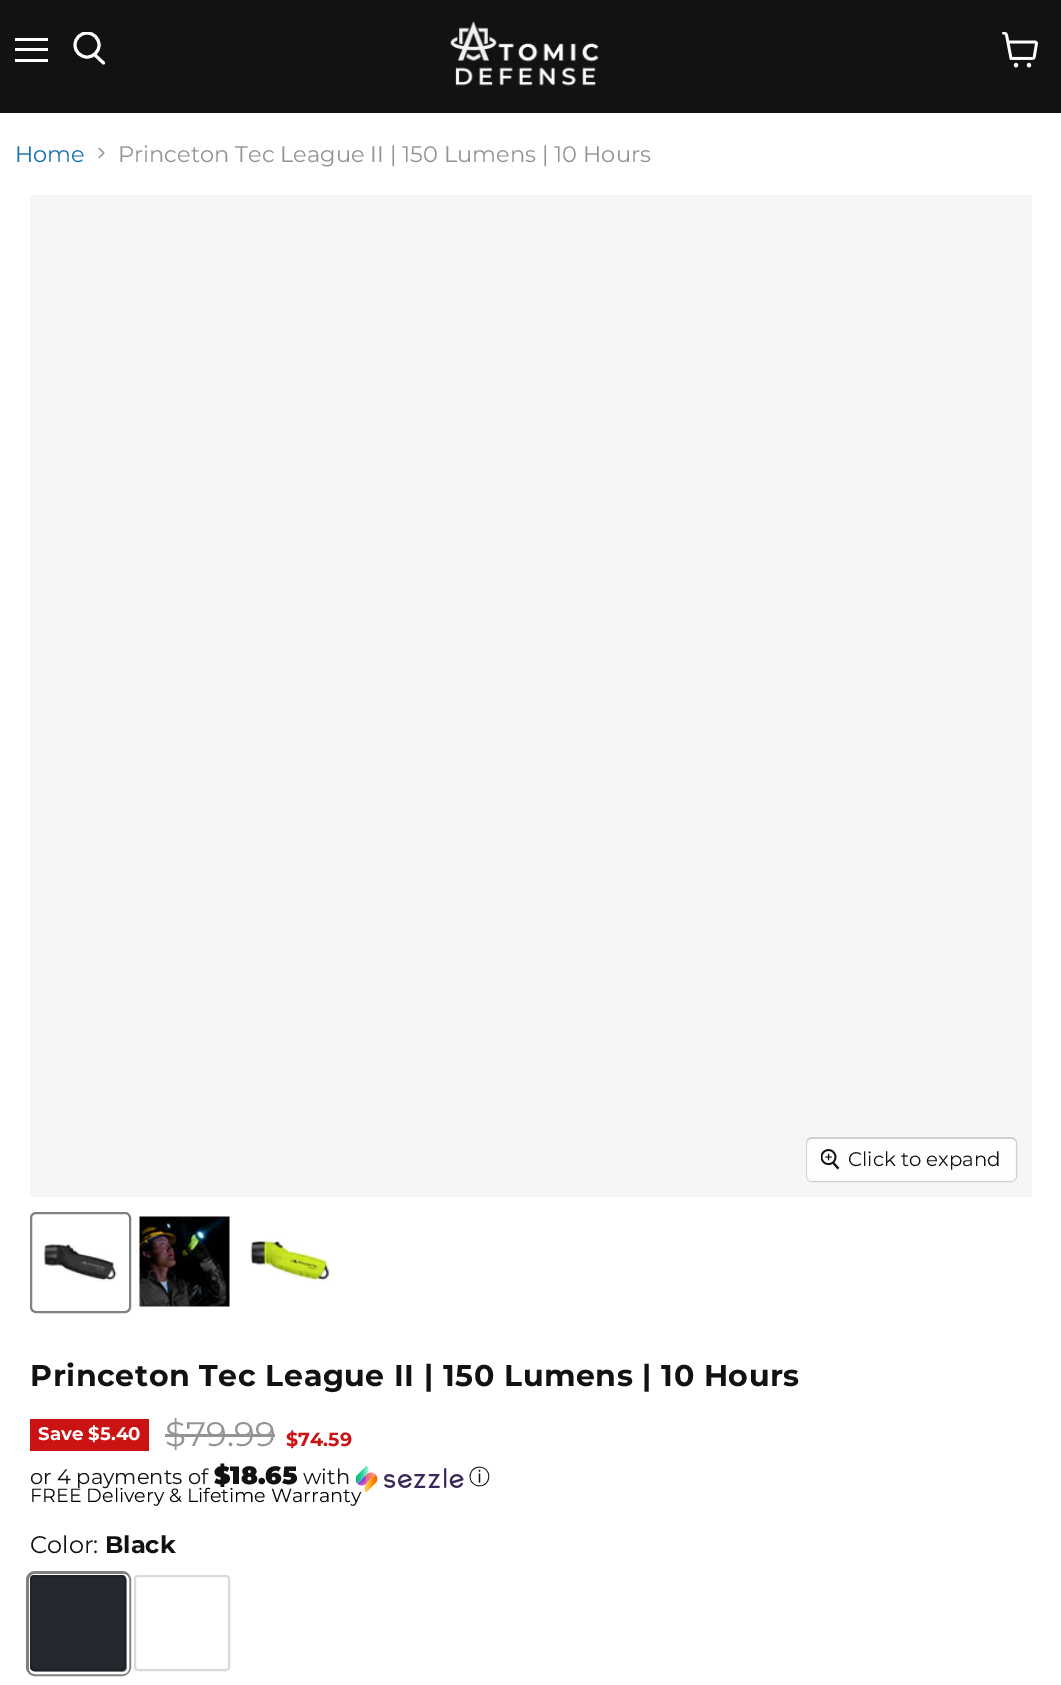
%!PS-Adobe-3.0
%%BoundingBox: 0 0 1061 1685
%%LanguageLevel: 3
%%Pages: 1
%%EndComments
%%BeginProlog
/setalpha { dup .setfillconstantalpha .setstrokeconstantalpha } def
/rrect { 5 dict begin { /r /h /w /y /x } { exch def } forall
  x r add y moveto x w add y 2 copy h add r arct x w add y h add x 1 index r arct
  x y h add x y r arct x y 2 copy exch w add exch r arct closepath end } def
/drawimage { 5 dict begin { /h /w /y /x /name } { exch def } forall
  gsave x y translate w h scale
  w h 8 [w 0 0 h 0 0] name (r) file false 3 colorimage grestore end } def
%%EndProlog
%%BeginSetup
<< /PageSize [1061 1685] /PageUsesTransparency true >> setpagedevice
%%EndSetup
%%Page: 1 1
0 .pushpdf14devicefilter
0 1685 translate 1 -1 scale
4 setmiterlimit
1 setgray
0 0 1061 1685 rectfill
0.071 setgray
0 0 1061 113 rectfill
1 setgray
15 38 33 3 rectfill
15 48 33 3 rectfill
15 59 33 3 rectfill
3 setlinewidth
1 setlinecap
newpath 103.5 63 moveto 95 55 lineto stroke
gsave
72 32 35 36 rectclip
0 setlinecap
newpath 87 45 12 0 360 arc closepath stroke
grestore
(images/1.raw) 450 21 149 65 drawimage
(images/2.raw) 1002 32 36 36 drawimage
(images/3.raw) 98 147 7 12 drawimage
0.965 setgray
30 195 1002 1002 rectfill
0.82 setgray
2 setlinewidth
0 setlinecap
807 1138 209 43 5 rrect stroke
0.9 setalpha
1 setgray
807 1139 209 42 5 rrect fill
1 setalpha
(images/4.raw) 821 1149 19 21 drawimage
0.506 setgray
31 1213 99 99 5 rrect stroke
(images/5.raw) 44 1243 73 40 drawimage
(images/6.raw) 139 1216 91 91 drawimage
(images/7.raw) 250 1236 81 45 drawimage
0.8 0.075 0.075 setrgbcolor
30 1419 119 32 rectfill
0.58 setgray
165 1434 110 3 rectfill
0.506 setgray
5 setlinewidth
28.5 1573.5 100 100 6.5 rrect stroke
1 setgray
2 setlinewidth
30 1575 98 98 5 rrect stroke
0.145 0.157 0.184 setrgbcolor
30 1575 96 96 4 rrect fill
0.15 setalpha
0 setgray
31 1576 94 94 3 rrect stroke
1 setalpha
0.851 setgray
135 1576 94 94 3 rrect stroke
/Montserrat-Thin [22.5 0 0 -22.5 0 0] selectfont
0.09 0.451 0.69 setrgbcolor
15 162 moveto (Home) show
0.58 setgray
118 162 moveto (Princeton Tec League II | 150 Lumens | 10 Hours) show
/Montserrat-Thin [19.75 0 0 -19.75 0 0] selectfont
0.071 setgray
848 1166 moveto (Click to expand) show
/Montserrat-Bold [30 0 0 -30 0 0] selectfont
30 1386 moveto 0.6 0 (Princeton Tec League II | 150 Lumens | 10 Hours) ashow
/Montserrat-Bold [18.25 0 0 -18.25 0 0] selectfont
1 setgray
38 1440 moveto (Save $5.40) show
/Montserrat-Thin [34 0 0 -34 0 0] selectfont
0.58 setgray
165 1446 moveto ($79.99) show
/Montserrat-Bold [19.1 0 0 -19.1 0 0] selectfont
0.8 0.075 0.075 setrgbcolor
286 1446 moveto ($74.59) show
/Montserrat-Thin [21 0 0 -21 0 0] selectfont
0.071 setgray
30 1484 moveto (or 4 payments of) show
/Montserrat-Black [25 0 0 -25 0 0] selectfont
214 1484 moveto ($18.65) show
/Montserrat-Thin [21 0 0 -21 0 0] selectfont
303 1484 moveto (with) show
/WenQuanYiZenHei-Medium [21 0 0 -21 0 0] selectfont
469 1484 moveto (ⓘ) show
/Montserrat-Thin [19.1 0 0 -19.1 0 0] selectfont
0 setgray
30 1502 moveto (FREE Delivery & Lifetime Warranty) show
(images/8.raw) 356 1466 108 27 drawimage
/Montserrat-Thin [24 0 0 -24 0 0] selectfont
0.071 setgray
30 1553 moveto (Color:) show
/Montserrat-Bold [24 0 0 -24 0 0] selectfont
105 1553 moveto (Black) show
.poppdf14devicefilter showpage
%%EOF
